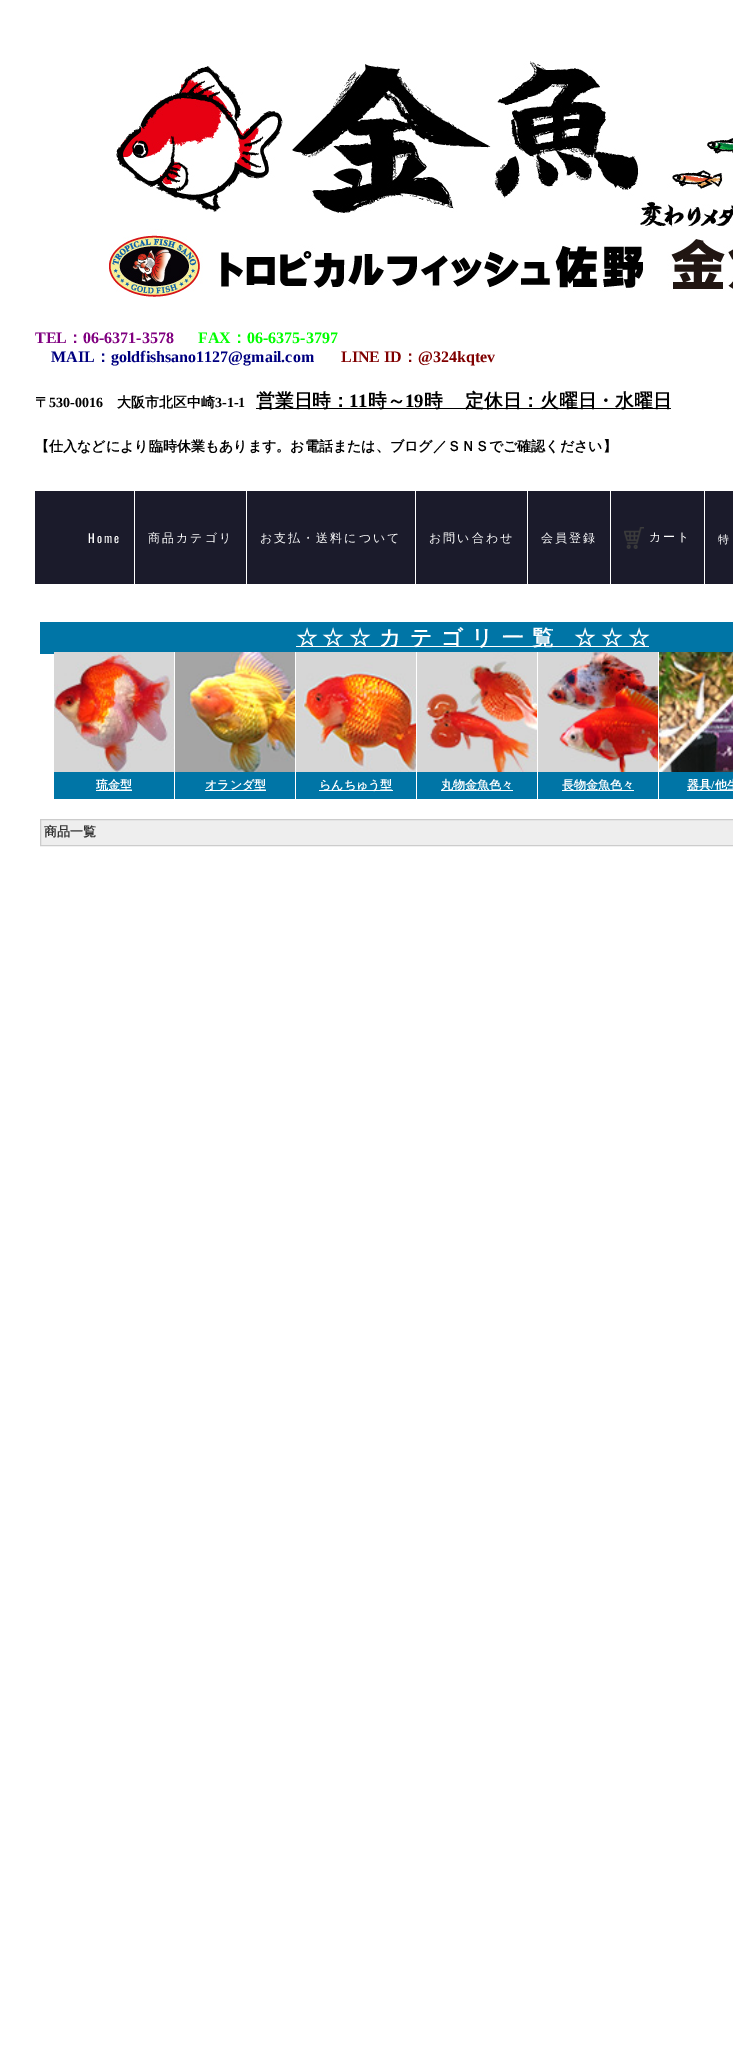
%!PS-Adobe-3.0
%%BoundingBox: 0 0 733 2056
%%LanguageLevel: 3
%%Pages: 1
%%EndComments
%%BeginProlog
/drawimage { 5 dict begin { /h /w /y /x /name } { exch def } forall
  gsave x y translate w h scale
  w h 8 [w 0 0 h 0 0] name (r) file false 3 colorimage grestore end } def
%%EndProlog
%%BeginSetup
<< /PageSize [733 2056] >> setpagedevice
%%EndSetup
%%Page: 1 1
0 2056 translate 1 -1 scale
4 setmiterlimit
1 setgray
0 0 733 2056 rectfill
(images/1.raw) 109 61 624 236 drawimage
0 setgray
256 408 415 1 rectfill
0.106 0.106 0.169 setrgbcolor
35 491 698 93 rectfill
1 setgray
134 491 1 93 rectfill
246 491 1 93 rectfill
415 491 1 93 rectfill
527 491 1 93 rectfill
610 491 1 93 rectfill
704 491 1 93 rectfill
(images/2.raw) 624 527 20 22 drawimage
0 0.459 0.651 setrgbcolor
40 622 693 32 rectfill
1 setgray
296 646 353 1 rectfill
174 652 1 2 rectfill
(images/3.raw) 54 652 120 120 drawimage
0 0.459 0.651 setrgbcolor
54 772 120 27 rectfill
1 setgray
96 790 36 1 rectfill
295 652 1 2 rectfill
(images/4.raw) 175 652 120 120 drawimage
0 0.459 0.651 setrgbcolor
175 772 120 27 rectfill
1 setgray
205 790 61 1 rectfill
416 652 1 2 rectfill
(images/5.raw) 296 652 120 120 drawimage
0 0.459 0.651 setrgbcolor
296 772 120 27 rectfill
1 setgray
319 790 74 1 rectfill
537 652 1 2 rectfill
(images/6.raw) 417 652 120 120 drawimage
0 0.459 0.651 setrgbcolor
417 772 120 27 rectfill
1 setgray
441 790 72 1 rectfill
658 652 1 2 rectfill
(images/7.raw) 538 652 120 120 drawimage
0 0.459 0.651 setrgbcolor
538 772 120 27 rectfill
1 setgray
562 790 72 1 rectfill
(images/8.raw) 659 652 74 120 drawimage
0 0.459 0.651 setrgbcolor
659 772 74 27 rectfill
1 setgray
687 790 46 1 rectfill
0.933 setgray
newpath 40.5 819.5 moveto 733.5 819.5 lineto 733.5 845.5 lineto 40.5 845.5 lineto closepath gsave fill grestore
0.8 setgray
stroke
/LiberationSerif-Bold [16 0 0 -16 0 0] selectfont
0.502 0 0.502 setrgbcolor
35 343 moveto (TEL) show
/WenQuanYiZenHei-Bold [16 0 0 -16 0 0] selectfont
67 343 moveto (：) show
/LiberationSerif-Bold [16 0 0 -16 0 0] selectfont
83 343 moveto (06-6371-3578) show
0 1 0 setrgbcolor
198 343 moveto (FAX) show
/WenQuanYiZenHei-Bold [16 0 0 -16 0 0] selectfont
231 343 moveto (：) show
/LiberationSerif-Bold [16 0 0 -16 0 0] selectfont
247 343 moveto (06-6375-3797) show
0 0 0.502 setrgbcolor
51 362 moveto (MAIL) show
/WenQuanYiZenHei-Bold [16 0 0 -16 0 0] selectfont
95 362 moveto (：) show
/LiberationSerif-Bold [16 0 0 -16 0 0] selectfont
111 362 moveto (goldfishsano1127@gmail.com) show
0.502 0 0 setrgbcolor
341 362 moveto (LINE ID) show
/WenQuanYiZenHei-Bold [16 0 0 -16 0 0] selectfont
402 362 moveto (：) show
/LiberationSerif-Bold [16 0 0 -16 0 0] selectfont
418 362 moveto (@324kqtev) show
/WenQuanYiZenHei-Bold [14 0 0 -14 0 0] selectfont
0 setgray
35 407 moveto (〒) show
/LiberationSerif-Bold [14 0 0 -14 0 0] selectfont
49 407 moveto (530-0016) show
/WenQuanYiZenHei-Bold [14 0 0 -14 0 0] selectfont
117 407 moveto (大阪市北区中崎) show
/LiberationSerif-Bold [14 0 0 -14 0 0] selectfont
215 407 moveto (3-1-1) show
/WenQuanYiZenHei-Bold [18.75 0 0 -18.75 0 0] selectfont
256 407 moveto (営業日時：) show
/LiberationSerif-Bold [18.75 0 0 -18.75 0 0] selectfont
349 407 moveto (11) show
/WenQuanYiZenHei-Bold [18.75 0 0 -18.75 0 0] selectfont
368 407 moveto (時～) show
/LiberationSerif-Bold [18.75 0 0 -18.75 0 0] selectfont
405 407 moveto (19) show
/WenQuanYiZenHei-Bold [18.75 0 0 -18.75 0 0] selectfont
424 407 moveto (時) show
465 407 moveto (定休日：火曜日・水曜日) show
/WenQuanYiZenHei-Bold [14 0 0 -14 0 0] selectfont
35 451 moveto (【仕入などにより臨時休業もあります。お電話または、ブログ／ＳＮＳでご確認ください】) show
/Oswald-Regular [12 0 0 -12 0 0] selectfont
1 setgray
88 543 moveto 2 0 (Home) ashow
/WenQuanYiZenHei-Medium [12 0 0 -12 0 0] selectfont
148 542 moveto 2 0 (商品カテゴリ) ashow
260 542 moveto 2 0 (お支払・送料について) ashow
429 542 moveto 2 0 (お問い合わせ) ashow
541 542 moveto 2 0 (会員登録) ashow
649 541 moveto 2 0 (カート) ashow
/WenQuanYiZenHei-Medium [11 0 0 -11 0 0] selectfont
718 543 moveto 2 0 (特) ashow
/WenQuanYiZenHei-Bold [21.5 0 0 -21.5 0 0] selectfont
296 645 moveto (☆) show
322 645 moveto -1 0 32 (☆ ☆) widthshow
379 645 moveto (カ) show
410 645 moveto (テ) show
441 645 moveto (ゴ) show
471 645 moveto (リ) show
502 645 moveto (一) show
532 645 moveto (覧) show
574 645 moveto -1 0 32 (☆ ☆ ☆) widthshow
/WenQuanYiZenHei-Bold [12 0 0 -12 0 0] selectfont
96 789 moveto (琉金型) show
205 789 moveto (オランダ型) show
319 789 moveto (らんちゅう型) show
441 789 moveto (丸物金魚色々) show
562 789 moveto (長物金魚色々) show
687 789 moveto (器具) show
/LiberationSerif-Bold [12 0 0 -12 0 0] selectfont
711 789 moveto (/) show
/WenQuanYiZenHei-Bold [12 0 0 -12 0 0] selectfont
715 789 moveto (他生) show
/WenQuanYiZenHei-Bold [13 0 0 -13 0 0] selectfont
0.2 setgray
44 836 moveto (商品一覧) show
showpage
%%EOF
